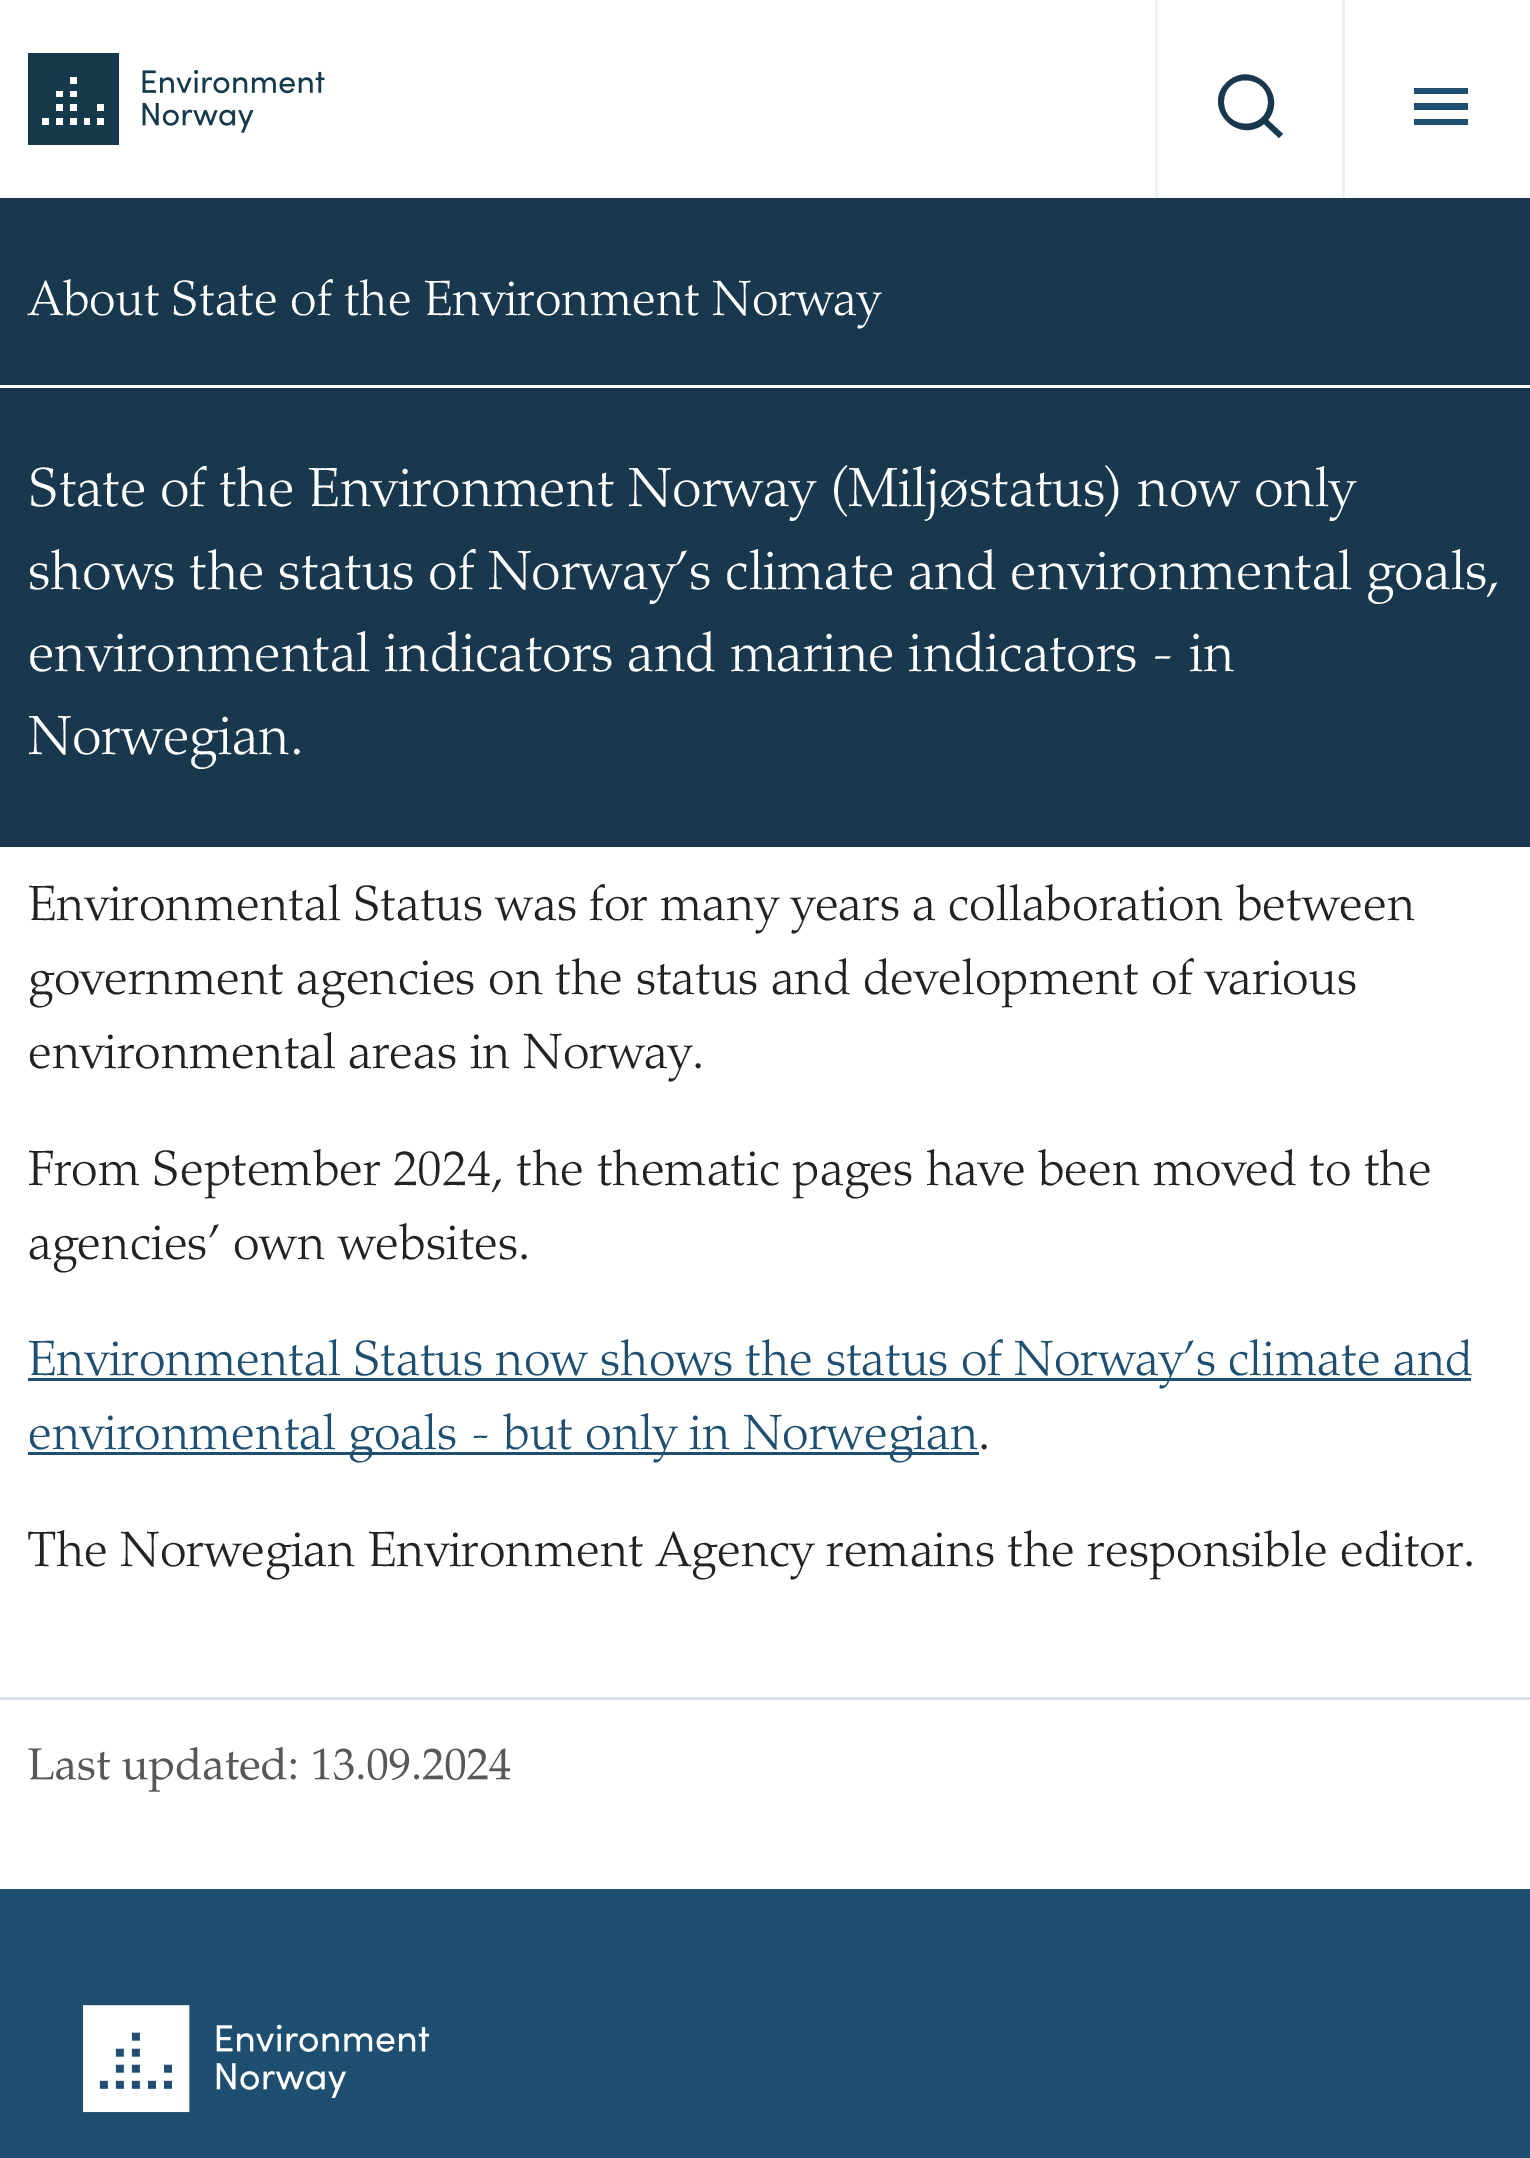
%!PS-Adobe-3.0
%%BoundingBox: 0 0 1530 2158
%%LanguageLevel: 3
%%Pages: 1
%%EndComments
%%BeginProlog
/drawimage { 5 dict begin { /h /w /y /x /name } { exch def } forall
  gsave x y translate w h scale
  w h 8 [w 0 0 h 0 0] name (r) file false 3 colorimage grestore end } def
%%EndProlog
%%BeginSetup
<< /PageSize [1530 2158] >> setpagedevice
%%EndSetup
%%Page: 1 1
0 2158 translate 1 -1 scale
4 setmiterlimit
1 setgray
0 0 1530 2158 rectfill
(images/1.raw) 28 53 297 92 drawimage
0.941 setgray
1155 0 3 198 rectfill
0.098 0.22 0.306 setrgbcolor
newpath 1268 120 moveto 1289 93 1251 58 1226 83 curveto 1202 107 1237 145 1264 124 curveto 1279 138 lineto 1283 134 lineto closepath 1268 102 moveto 1268 131 1224 131 1224 102 curveto 1224 72 1268 74 1268 102 curveto closepath fill
0.941 setgray
1342 0 3 198 rectfill
0.118 0.31 0.443 setrgbcolor
newpath 1468 125 moveto 1414 125 lineto 1414 119 lineto 1468 119 lineto closepath 1468 110 moveto 1414 110 lineto 1414 103 lineto 1468 103 lineto closepath 1468 94 moveto 1414 94 lineto 1414 88 lineto 1468 88 lineto closepath fill
0.098 0.22 0.306 setrgbcolor
0 198 1530 649 rectfill
1 setgray
0 385 1530 3 rectfill
0.118 0.31 0.443 setrgbcolor
28 1378 1443 3 rectfill
28 1452 951 3 rectfill
0.839 0.882 0.91 setrgbcolor
0 1697 1530 3 rectfill
(images/2.raw) 28 1747 268 45 drawimage
(images/3.raw) 313 1748 197 33 drawimage
0.118 0.31 0.443 setrgbcolor
0 1889 1530 269 rectfill
(images/4.raw) 83 2005 346 108 drawimage
/Palatino-Regular [49.5 0 0 -49.5 0 0] selectfont
1 setgray
28 315 moveto (About State of the Environment Norway) show
/Palatino-Regular [55.05 0 0 -55.05 0 0] selectfont
28 506 moveto -0.25 0 32 (State of the Environment Norway \(Miljøstatus\) now only) widthshow
28 589 moveto -0.25 0 32 (shows the status of Norway’s climate and environmental goals,) widthshow
28 671 moveto (environmental indicators and marine indicators - in) show
28 754 moveto (Norwegian.) show
/Palatino-Regular [49.5 0 0 -49.5 0 0] selectfont
0.133 setgray
28 920 moveto (Environmental Status was for many years a collaboration between) show
28 994 moveto (government agencies on the status and development of various) show
28 1068 moveto (environmental areas in Norway.) show
28 1185 moveto (From September 2024, the thematic pages have been moved to the) show
28 1259 moveto (agencies’ own websites.) show
0.118 0.31 0.443 setrgbcolor
28 1375 moveto (Environmental Status now shows the status of Norway’s climate and) show
28 1449 moveto (environmental goals - but only in Norwegian) show
0.133 setgray
978 1449 moveto (.) show
28 1566 moveto (The Norwegian Environment Agency remains the responsible editor.) show
showpage
%%EOF
